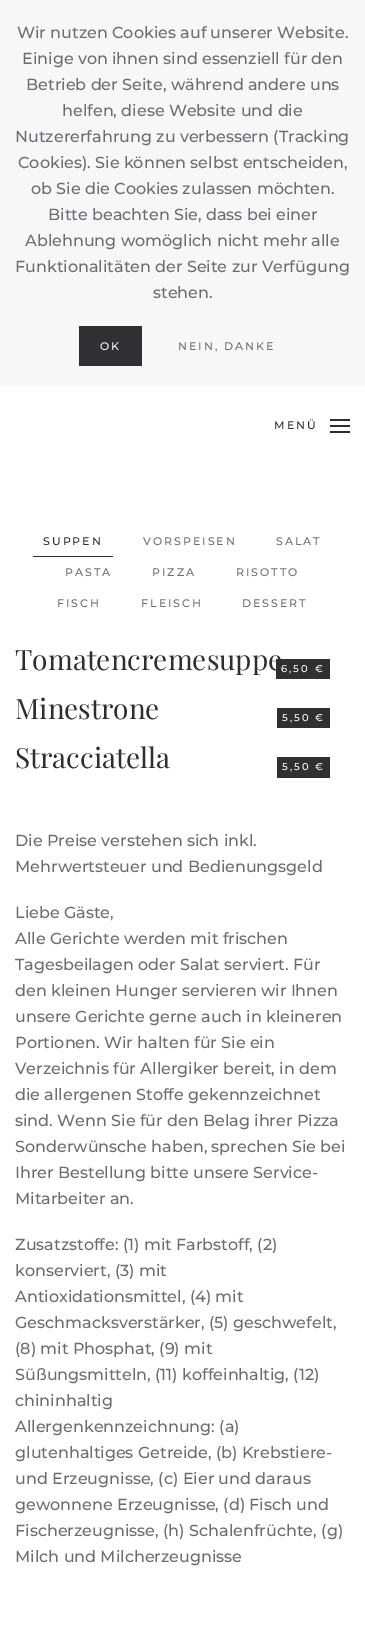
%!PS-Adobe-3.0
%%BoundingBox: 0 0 365 1632
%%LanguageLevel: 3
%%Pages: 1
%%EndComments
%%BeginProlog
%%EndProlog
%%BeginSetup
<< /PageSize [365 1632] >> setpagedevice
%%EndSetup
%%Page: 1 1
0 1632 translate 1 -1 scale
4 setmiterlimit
1 setgray
0 0 365 1632 rectfill
0.969 setgray
0 0 365 386 rectfill
0.188 0.188 0.2 setrgbcolor
79 326 63 40 rectfill
0.176 0.18 0.2 setrgbcolor
330 419 20 2 rectfill
330 425 20 2 rectfill
330 431 20 2 rectfill
0.188 0.188 0.2 setrgbcolor
33 556 80 1 rectfill
277 708 53 20 rectfill
277 757 53 21 rectfill
/Montserrat-Thin [16 0 0 -16 0 0] selectfont
0.424 0.427 0.455 setrgbcolor
17 38 moveto (Wir nutzen Cookies auf unserer Website.) show
22 64 moveto (Einige von ihnen sind essenziell für den) show
26 90 moveto (Betrieb der Seite, während andere uns) show
62 116 moveto (helfen, diese Website und die) show
15 142 moveto (Nutzererfahrung zu verbessern \(Tracking) show
18 168 moveto (Cookies\). Sie können selbst entscheiden,) show
31 194 moveto (ob Sie die Cookies zulassen möchten.) show
48 220 moveto (Bitte beachten Sie, dass bei einer) show
25 246 moveto (Ablehnung womöglich nicht mehr alle) show
15 272 moveto (Funktionalitäten der Seite zur Verfügung) show
153 298 moveto (stehen.) show
/Montserrat-Thin [11 0 0 -11 0 0] selectfont
1 setgray
100 350 moveto 2 0 (OK) ashow
0.424 0.427 0.455 setrgbcolor
178 350 moveto 2 0 (NEIN, DANKE) ashow
0.176 0.18 0.2 setrgbcolor
274 429 moveto 2 0 (MENÜ) ashow
43 545 moveto 2 0 (SUPPEN) ashow
0.424 0.427 0.455 setrgbcolor
143 545 moveto 2 0 (VORSPEISEN) ashow
276 545 moveto 2 0 (SALAT) ashow
65 576 moveto 2 0 (PASTA) ashow
152 576 moveto 2 0 (PIZZA) ashow
236 576 moveto 2 0 (RISOTTO) ashow
57 607 moveto 2 0 (FISCH) ashow
141 607 moveto 2 0 (FLEISCH) ashow
242 607 moveto 2 0 (DESSERT) ashow
/PlayfairDisplay-Regular [28 0 0 -28 0 0] selectfont
0.176 0.18 0.2 setrgbcolor
15 670 moveto (Tomatencremesuppe) show
0.188 0.188 0.2 setrgbcolor
276 659 54 20 rectfill
/Montserrat-Thin [10 0 0 -10 0 0] selectfont
1 setgray
281 672 moveto 2 0 (6,50 €) ashow
/PlayfairDisplay-Regular [28 0 0 -28 0 0] selectfont
0.176 0.18 0.2 setrgbcolor
15 719 moveto (Minestrone) show
/Montserrat-Thin [10 0 0 -10 0 0] selectfont
1 setgray
282 721 moveto 2 0 (5,50 €) ashow
/PlayfairDisplay-Regular [28 0 0 -28 0 0] selectfont
0.176 0.18 0.2 setrgbcolor
15 768 moveto (Stracciatella) show
/Montserrat-Thin [10 0 0 -10 0 0] selectfont
1 setgray
282 770 moveto 2 0 (5,50 €) ashow
/Montserrat-Thin [16 0 0 -16 0 0] selectfont
0.424 0.427 0.455 setrgbcolor
15 846 moveto (Die Preise verstehen sich inkl.) show
15 872 moveto (Mehrwertsteuer und Bedienungsgeld) show
15 918 moveto (Liebe Gäste,) show
15 944 moveto (Alle Gerichte werden mit frischen) show
15 970 moveto (Tagesbeilagen oder Salat serviert. Für) show
15 996 moveto (den kleinen Hunger servieren wir Ihnen) show
15 1022 moveto (unsere Gerichte gerne auch in kleineren) show
15 1048 moveto (Portionen. Wir halten für Sie ein) show
15 1074 moveto (Verzeichnis für Allergiker bereit, in dem) show
15 1100 moveto (die allergenen Stoffe gekennzeichnet) show
15 1126 moveto (sind. Wenn Sie für den Belag ihrer Pizza) show
15 1152 moveto (Sonderwünsche haben, sprechen Sie bei) show
15 1178 moveto (Ihrer Bestellung bitte unsere Service-) show
15 1204 moveto (Mitarbeiter an.) show
15 1250 moveto (Zusatzstoffe: \(1\) mit Farbstoff, \(2\)) show
15 1276 moveto (konserviert, \(3\) mit) show
15 1302 moveto (Antioxidationsmittel, \(4\) mit) show
15 1328 moveto (Geschmacksverstärker, \(5\) geschwefelt,) show
15 1354 moveto (\(8\) mit Phosphat, \(9\) mit) show
15 1380 moveto (Süßungsmitteln, \(11\) koffeinhaltig, \(12\)) show
15 1406 moveto (chininhaltig) show
15 1432 moveto (Allergenkennzeichnung: \(a\)) show
15 1458 moveto (glutenhaltiges Getreide, \(b\) Krebstiere-) show
15 1484 moveto (und Erzeugnisse, \(c\) Eier und daraus) show
15 1510 moveto (gewonnene Erzeugnisse, \(d\) Fisch und) show
15 1536 moveto (Fischerzeugnisse, \(h\) Schalenfrüchte, \(g\)) show
15 1562 moveto (Milch und Milcherzeugnisse) show
showpage
%%EOF
